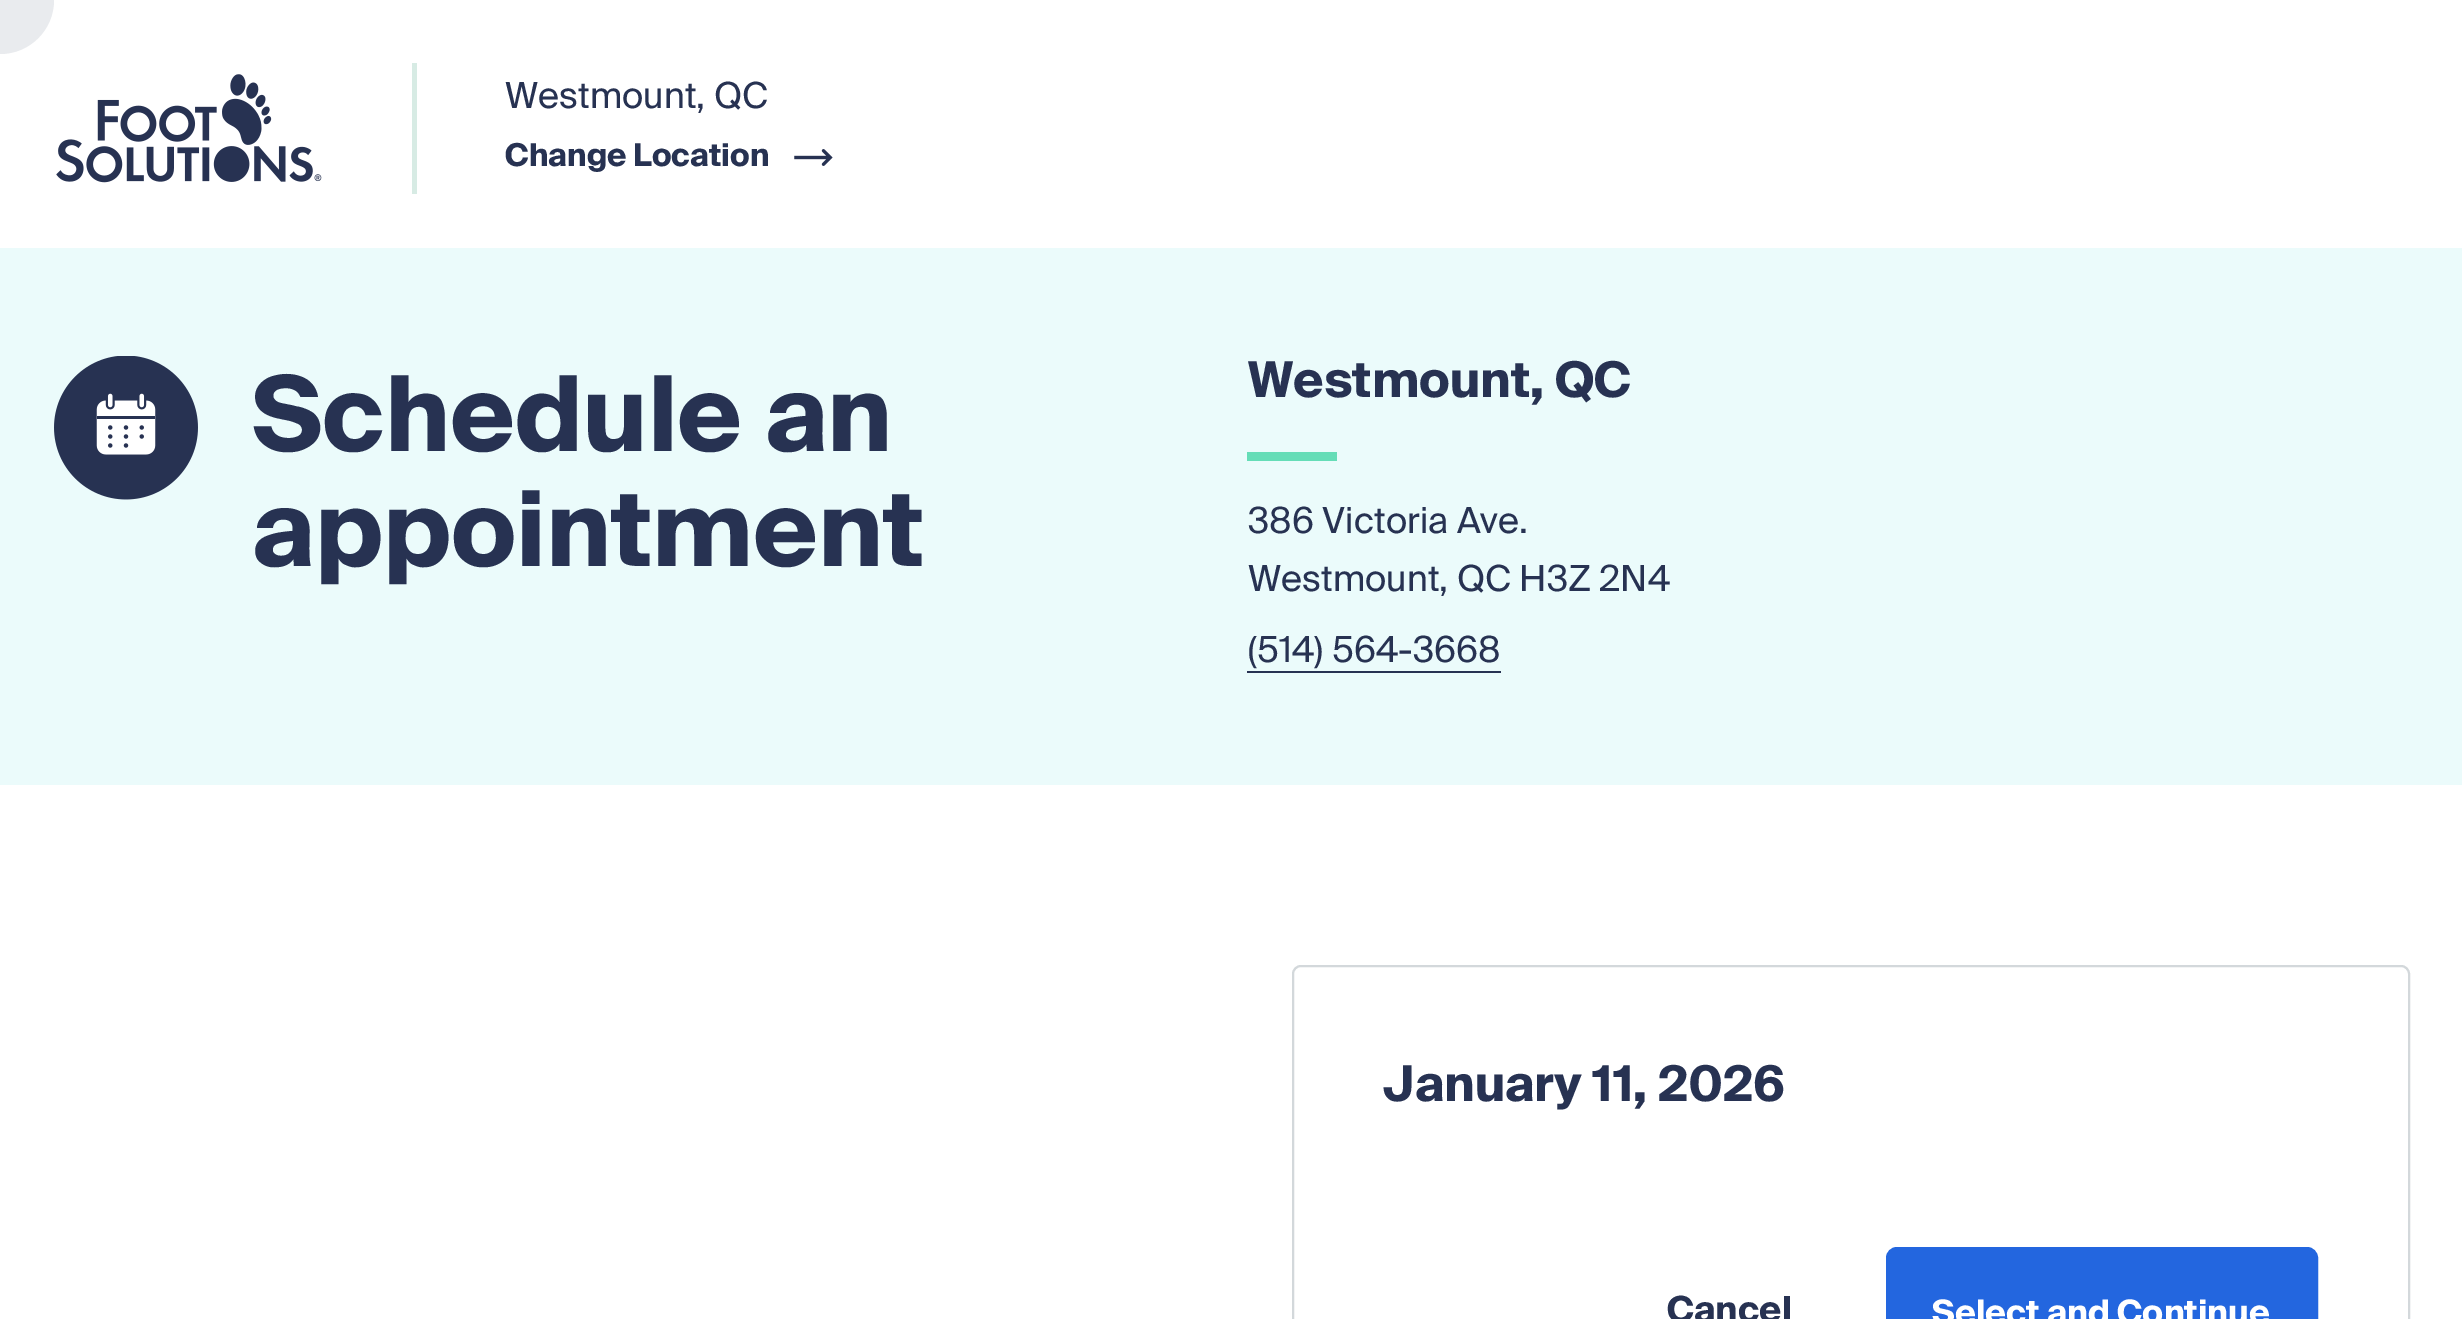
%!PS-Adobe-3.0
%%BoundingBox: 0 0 2462 1319
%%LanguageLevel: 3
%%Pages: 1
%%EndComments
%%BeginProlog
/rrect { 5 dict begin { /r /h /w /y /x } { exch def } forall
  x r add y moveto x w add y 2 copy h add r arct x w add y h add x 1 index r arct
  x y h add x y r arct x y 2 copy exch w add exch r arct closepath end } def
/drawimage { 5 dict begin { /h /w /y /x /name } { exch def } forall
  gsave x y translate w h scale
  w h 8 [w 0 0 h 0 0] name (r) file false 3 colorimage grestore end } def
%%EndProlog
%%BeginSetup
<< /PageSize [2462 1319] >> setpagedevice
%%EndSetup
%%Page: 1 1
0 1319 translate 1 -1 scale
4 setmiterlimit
1 setgray
0 0 2462 1319 rectfill
0.914 0.922 0.933 setrgbcolor
newpath 0 0 54 0 360 arc closepath fill
(images/1.raw) 56 74 266 109 drawimage
0.843 0.922 0.894 setrgbcolor
412 63 5 131 rectfill
(images/2.raw) 794 149 39 17 drawimage
0.922 0.984 0.984 setrgbcolor
0 248 2462 537 rectfill
(images/3.raw) 54 356 144 144 drawimage
0.396 0.867 0.718 setrgbcolor
1247 452 90 9 rectfill
0.153 0.196 0.322 setrgbcolor
1247 671 254 2 rectfill
0.827 0.847 0.859 setrgbcolor
2 setlinewidth
1293 966 1116 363 8 rrect stroke
0.137 0.4 0.875 setrgbcolor
1887 1248 430 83 10 rrect gsave fill grestore
stroke
/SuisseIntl-Regular [36 0 0 -36 0 0] selectfont
0.153 0.196 0.322 setrgbcolor
505 108 moveto (Westmount, QC) show
/SuisseIntl-Bold [31.5 0 0 -31.5 0 0] selectfont
505 166 moveto (Change Location) show
/SuisseIntl-Bold [104.75 0 0 -104.75 0 0] selectfont
252 451 moveto (Schedule an) show
252 566 moveto (appointment) show
/SuisseIntl-Bold [49.25 0 0 -49.25 0 0] selectfont
1248 397 moveto (Westmount, QC) show
/SuisseIntl-Regular [36 0 0 -36 0 0] selectfont
1248 533 moveto (386 Victoria Ave.) show
1248 591 moveto (Westmount, QC H3Z 2N4) show
1248 662 moveto (\(514\) 564-3668) show
/SuisseIntl-Bold [49.25 0 0 -49.25 0 0] selectfont
1383 1101 moveto (January 11, 2026) show
/SuisseIntl-Bold [36 0 0 -36 0 0] selectfont
1667 1322 moveto (Cancel) show
/SuisseIntl-Bold [33.75 0 0 -33.75 0 0] selectfont
1 setgray
1932 1324 moveto (Select and Continue) show
showpage
%%EOF
